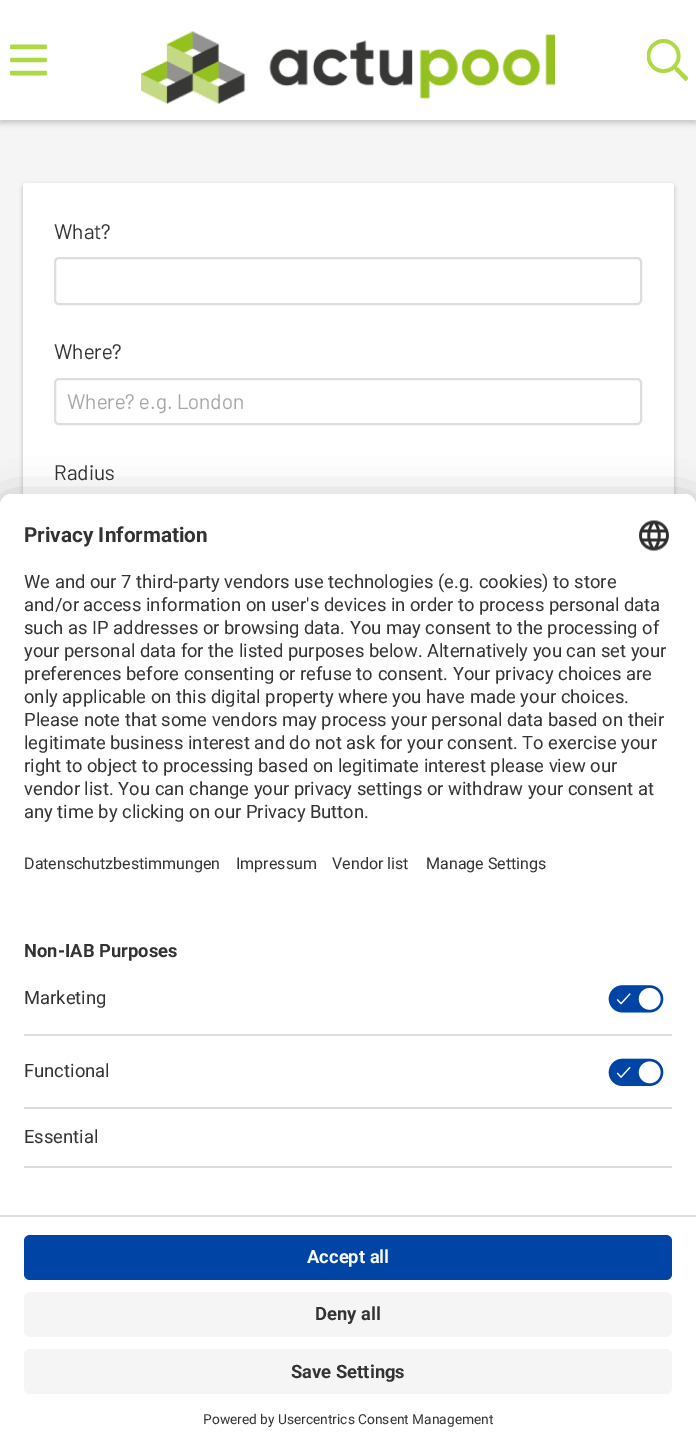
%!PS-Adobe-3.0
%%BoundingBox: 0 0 696 1451
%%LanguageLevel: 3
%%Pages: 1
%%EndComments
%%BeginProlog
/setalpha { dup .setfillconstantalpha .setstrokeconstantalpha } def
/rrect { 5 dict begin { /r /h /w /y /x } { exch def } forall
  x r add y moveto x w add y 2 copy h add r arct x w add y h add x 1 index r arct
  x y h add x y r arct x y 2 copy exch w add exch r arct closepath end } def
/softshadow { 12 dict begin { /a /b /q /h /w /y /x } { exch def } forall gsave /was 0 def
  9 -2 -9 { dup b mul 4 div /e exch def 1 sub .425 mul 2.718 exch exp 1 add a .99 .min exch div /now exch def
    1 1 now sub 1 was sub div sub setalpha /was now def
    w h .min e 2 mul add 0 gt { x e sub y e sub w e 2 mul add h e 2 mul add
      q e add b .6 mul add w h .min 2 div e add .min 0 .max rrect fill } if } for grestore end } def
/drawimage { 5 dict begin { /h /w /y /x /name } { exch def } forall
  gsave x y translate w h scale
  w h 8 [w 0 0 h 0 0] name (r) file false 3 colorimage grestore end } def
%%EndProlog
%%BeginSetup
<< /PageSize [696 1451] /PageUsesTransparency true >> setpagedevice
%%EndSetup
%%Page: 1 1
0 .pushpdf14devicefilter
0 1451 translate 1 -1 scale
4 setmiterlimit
0.961 setgray
0 0 696 1451 rectfill
0.569 setgray
0 3 696 120 0 3 0.5 softshadow
1 setgray
0 0 696 120 rectfill
(images/1.raw) 10 44 37 32 drawimage
(images/2.raw) 141 31 414 73 drawimage
(images/3.raw) 646 39 43 42 drawimage
0 setgray
23 185 651 493 3 2 0.25 softshadow
1 setgray
23 183 651 494 3 rrect fill
0.867 setgray
2 setlinewidth
55 258 586 46 4 rrect stroke
55 379 586 45 4 rrect stroke
0 setgray
0 524 696 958 12 21 0.3 softshadow
0 501 696 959 12 19.5 0.22 softshadow
1 setgray
newpath 12 494 moveto 684 494 lineto 690.5 494 696 499.5 696 506 curveto 696 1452 lineto 0 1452 lineto 0 506 lineto 0 499.5 5.5 494 12 494 curveto closepath fill
newpath 12 494 moveto 684 494 lineto 690.5 494 696 499.5 696 506 curveto 696 1215 lineto 0 1215 lineto 0 506 lineto 0 499.5 5.5 494 12 494 curveto closepath fill
newpath 12 494 moveto 684 494 lineto 690.5 494 696 499.5 696 506 curveto 696 923 lineto 0 923 lineto 0 506 lineto 0 499.5 5.5 494 12 494 curveto closepath fill
(images/4.raw) 639 520 30 31 drawimage
0.867 setgray
24 1034 648 2 rectfill
(images/5.raw) 608 985 56 29 drawimage
24 1107 648 2 rectfill
(images/6.raw) 608 1058 56 29 drawimage
24 1166 648 2 rectfill
0 1215 696 2 rectfill
0 0.271 0.647 setrgbcolor
24 1235 648 45 6 rrect fill
0.961 setgray
24 1292 648 45 6 rrect fill
24 1349 648 45 6 rrect fill
/Barlow-Regular [21 0 0 -21 0 0] selectfont
0.2 setgray
54 239 moveto (What?) show
54 359 moveto (Where?) show
0.659 setgray
67 409 moveto (Where? e.g. London) show
0.2 setgray
54 480 moveto (Radius) show
/Roboto-Bold [20.75 0 0 -20.75 0 0] selectfont
24 542 moveto (Privacy Information) show
/Roboto-Regular [18.4 0 0 -18.4 0 0] selectfont
24 588 moveto (We and our 7 third-party vendors use technologies \(e.g. cookies\) to store) show
24 611 moveto (and/or access information on user's devices in order to process personal data) show
24 634 moveto (such as IP addresses or browsing data. You may consent to the processing of) show
24 657 moveto (your personal data for the listed purposes below. Alternatively you can set your) show
24 680 moveto (preferences before consenting or refuse to consent. Your privacy choices are) show
24 703 moveto (only applicable on this digital property where you have made your choices.) show
24 726 moveto (Please note that some vendors may process your personal data based on their) show
24 749 moveto (legitimate business interest and do not ask for your consent. To exercise your) show
24 772 moveto (right to object to processing based on legitimate interest please view our) show
24 795 moveto (vendor list. You can change your privacy settings or withdraw your consent at) show
24 818 moveto (any time by clicking on our Privacy Button.) show
/Roboto-Regular [16 0 0 -16 0 0] selectfont
24 869 moveto (Datenschutzbestimmungen) show
236 869 moveto (Impressum) show
332 869 moveto (Vendor list) show
426 869 moveto (Manage Settings) show
/Roboto-Bold [18.4 0 0 -18.4 0 0] selectfont
24 957 moveto (Non-IAB Purposes) show
/Roboto-Regular [18.4 0 0 -18.4 0 0] selectfont
24 1004 moveto (Marketing) show
24 1077 moveto (Functional) show
24 1143 moveto (Essential) show
/Roboto-Bold [18.4 0 0 -18.4 0 0] selectfont
0.98 setgray
307 1263 moveto (Accept all) show
0.2 setgray
315 1320 moveto (Deny all) show
291 1378 moveto (Save Settings) show
/Roboto-Regular [13.75 0 0 -13.75 0 0] selectfont
203 1424 moveto (Powered by Usercentrics Consent Management) show
.poppdf14devicefilter showpage
%%EOF
